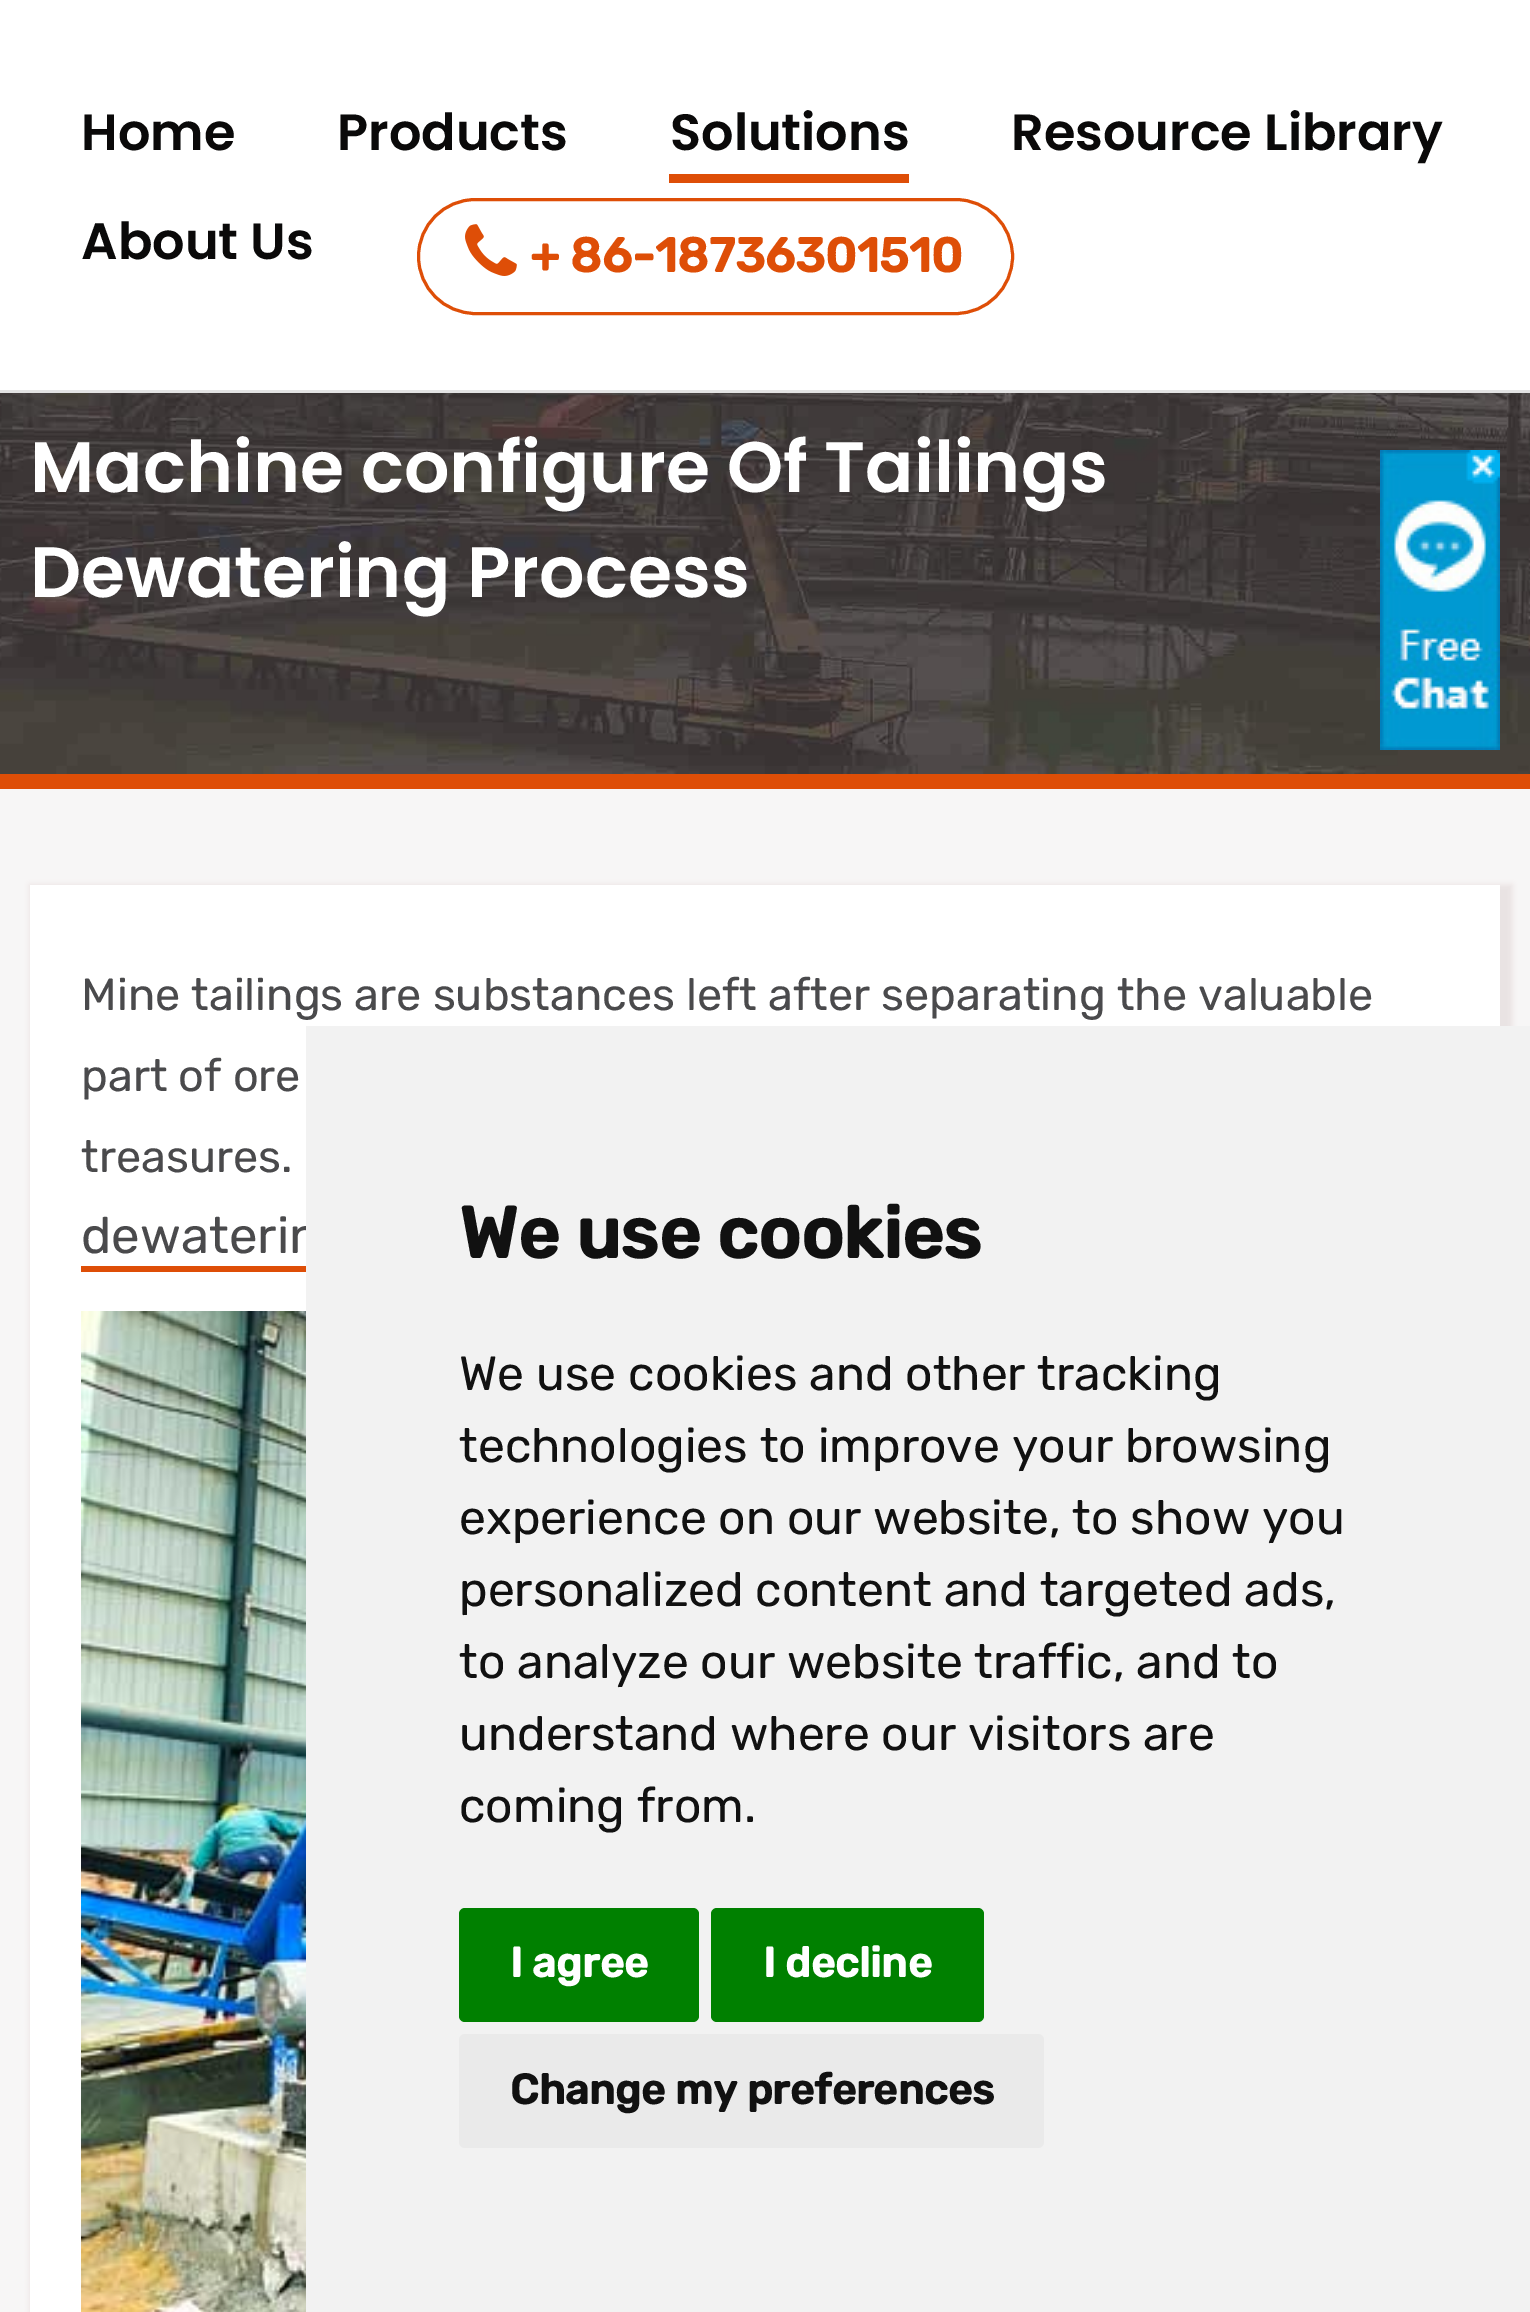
%!PS-Adobe-3.0
%%BoundingBox: 0 0 1530 2312
%%LanguageLevel: 3
%%Pages: 1
%%EndComments
%%BeginProlog
/setalpha { dup .setfillconstantalpha .setstrokeconstantalpha } def
/rrect { 5 dict begin { /r /h /w /y /x } { exch def } forall
  x r add y moveto x w add y 2 copy h add r arct x w add y h add x 1 index r arct
  x y h add x y r arct x y 2 copy exch w add exch r arct closepath end } def
/softshadow { 12 dict begin { /a /b /q /h /w /y /x } { exch def } forall gsave /was 0 def
  9 -2 -9 { dup b mul 4 div /e exch def 1 sub .425 mul 2.718 exch exp 1 add a .99 .min exch div /now exch def
    1 1 now sub 1 was sub div sub setalpha /was now def
    w h .min e 2 mul add 0 gt { x e sub y e sub w e 2 mul add h e 2 mul add
      q e add b .6 mul add w h .min 2 div e add .min 0 .max rrect fill } if } for grestore end } def
/drawimage { 5 dict begin { /h /w /y /x /name } { exch def } forall
  gsave x y translate w h scale
  w h 8 [w 0 0 h 0 0] name (r) file false 3 colorimage grestore end } def
%%EndProlog
%%BeginSetup
<< /PageSize [1530 2312] /PageUsesTransparency true >> setpagedevice
%%EndSetup
%%Page: 1 1
0 .pushpdf14devicefilter
0 2312 translate 1 -1 scale
4 setmiterlimit
0.969 0.965 0.965 setrgbcolor
0 0 1530 2312 rectfill
1 setgray
0 0 1530 390 rectfill
0.89 setgray
0 390 1530 3 rectfill
0.871 0.306 0.027 setrgbcolor
669 174 240 9 rectfill
3 setlinewidth
418.5 199.5 594 114 57 rrect stroke
(images/1.raw) 465 224 52 52 drawimage
(images/2.raw) 0 393 1530 381 drawimage
0 774 1530 15 rectfill
(images/3.raw) 1380 450 120 300 drawimage
(images/4.raw) 1466 450 34 34 drawimage
0.91 0.886 0.886 setrgbcolor
30 885 1482 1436 0 3 1 softshadow
1 setgray
30 885 1470 1427 rectfill
0.871 0.306 0.027 setrgbcolor
81 1266 225 6 rectfill
(images/5.raw) 81 1311 225 1001 drawimage
/Poppins-SemiBold [51 0 0 -51 0 0] selectfont
0.039 0.035 0.035 setrgbcolor
81 150 moveto (Home) show
337 150 moveto (Products) show
670 150 moveto (Solutions) show
1011 150 moveto (Resource Library) show
81 259 moveto (About Us) show
/Rubik-Bold [48 0 0 -48 0 0] selectfont
0.871 0.306 0.027 setrgbcolor
530 272 moveto (+ 86-18736301510) show
/Poppins-SemiBold [71.4 0 0 -71.4 0 0] selectfont
1 setgray
30 492 moveto (Machine configure Of Tailings) show
30 597 moveto (Dewatering Process) show
/Rubik-Regular [45 0 0 -45 0 0] selectfont
0.29 0.29 0.298 setrgbcolor
81 1010 moveto (Mine tailings are substances left after separating the valuable) show
81 1091 moveto (part of ore) show
81 1172 moveto (treasures.) show
/Rubik-Regular [51 0 0 -51 0 0] selectfont
81 1253 moveto (dewaterin) show
0.949 setgray
306 1026 1224 1286 rectfill
/Rubik-Bold [72 0 0 -72 0 0] selectfont
0.067 setgray
459 1258 moveto (We use cookies) show
/Rubik-Regular [48 0 0 -48 0 0] selectfont
459 1390 moveto (We use cookies and other tracking) show
459 1462 moveto (technologies to improve your browsing) show
459 1534 moveto (experience on our website, to show you) show
459 1606 moveto (personalized content and targeted ads,) show
459 1678 moveto (to analyze our website traffic, and to) show
459 1750 moveto (understand where our visitors are) show
459 1822 moveto (coming from.) show
0 0.502 0 setrgbcolor
459 1908 240 114 6 rrect fill
/Rubik-Bold [42 0 0 -42 0 0] selectfont
1 setgray
510 1977 moveto (I agree) show
0 0.502 0 setrgbcolor
711 1908 273 114 6 rrect fill
1 setgray
763 1977 moveto (I decline) show
0.918 setgray
459 2034 585 114 6 rrect fill
0.067 setgray
510 2104 moveto (Change my preferences) show
.poppdf14devicefilter showpage
%%EOF
